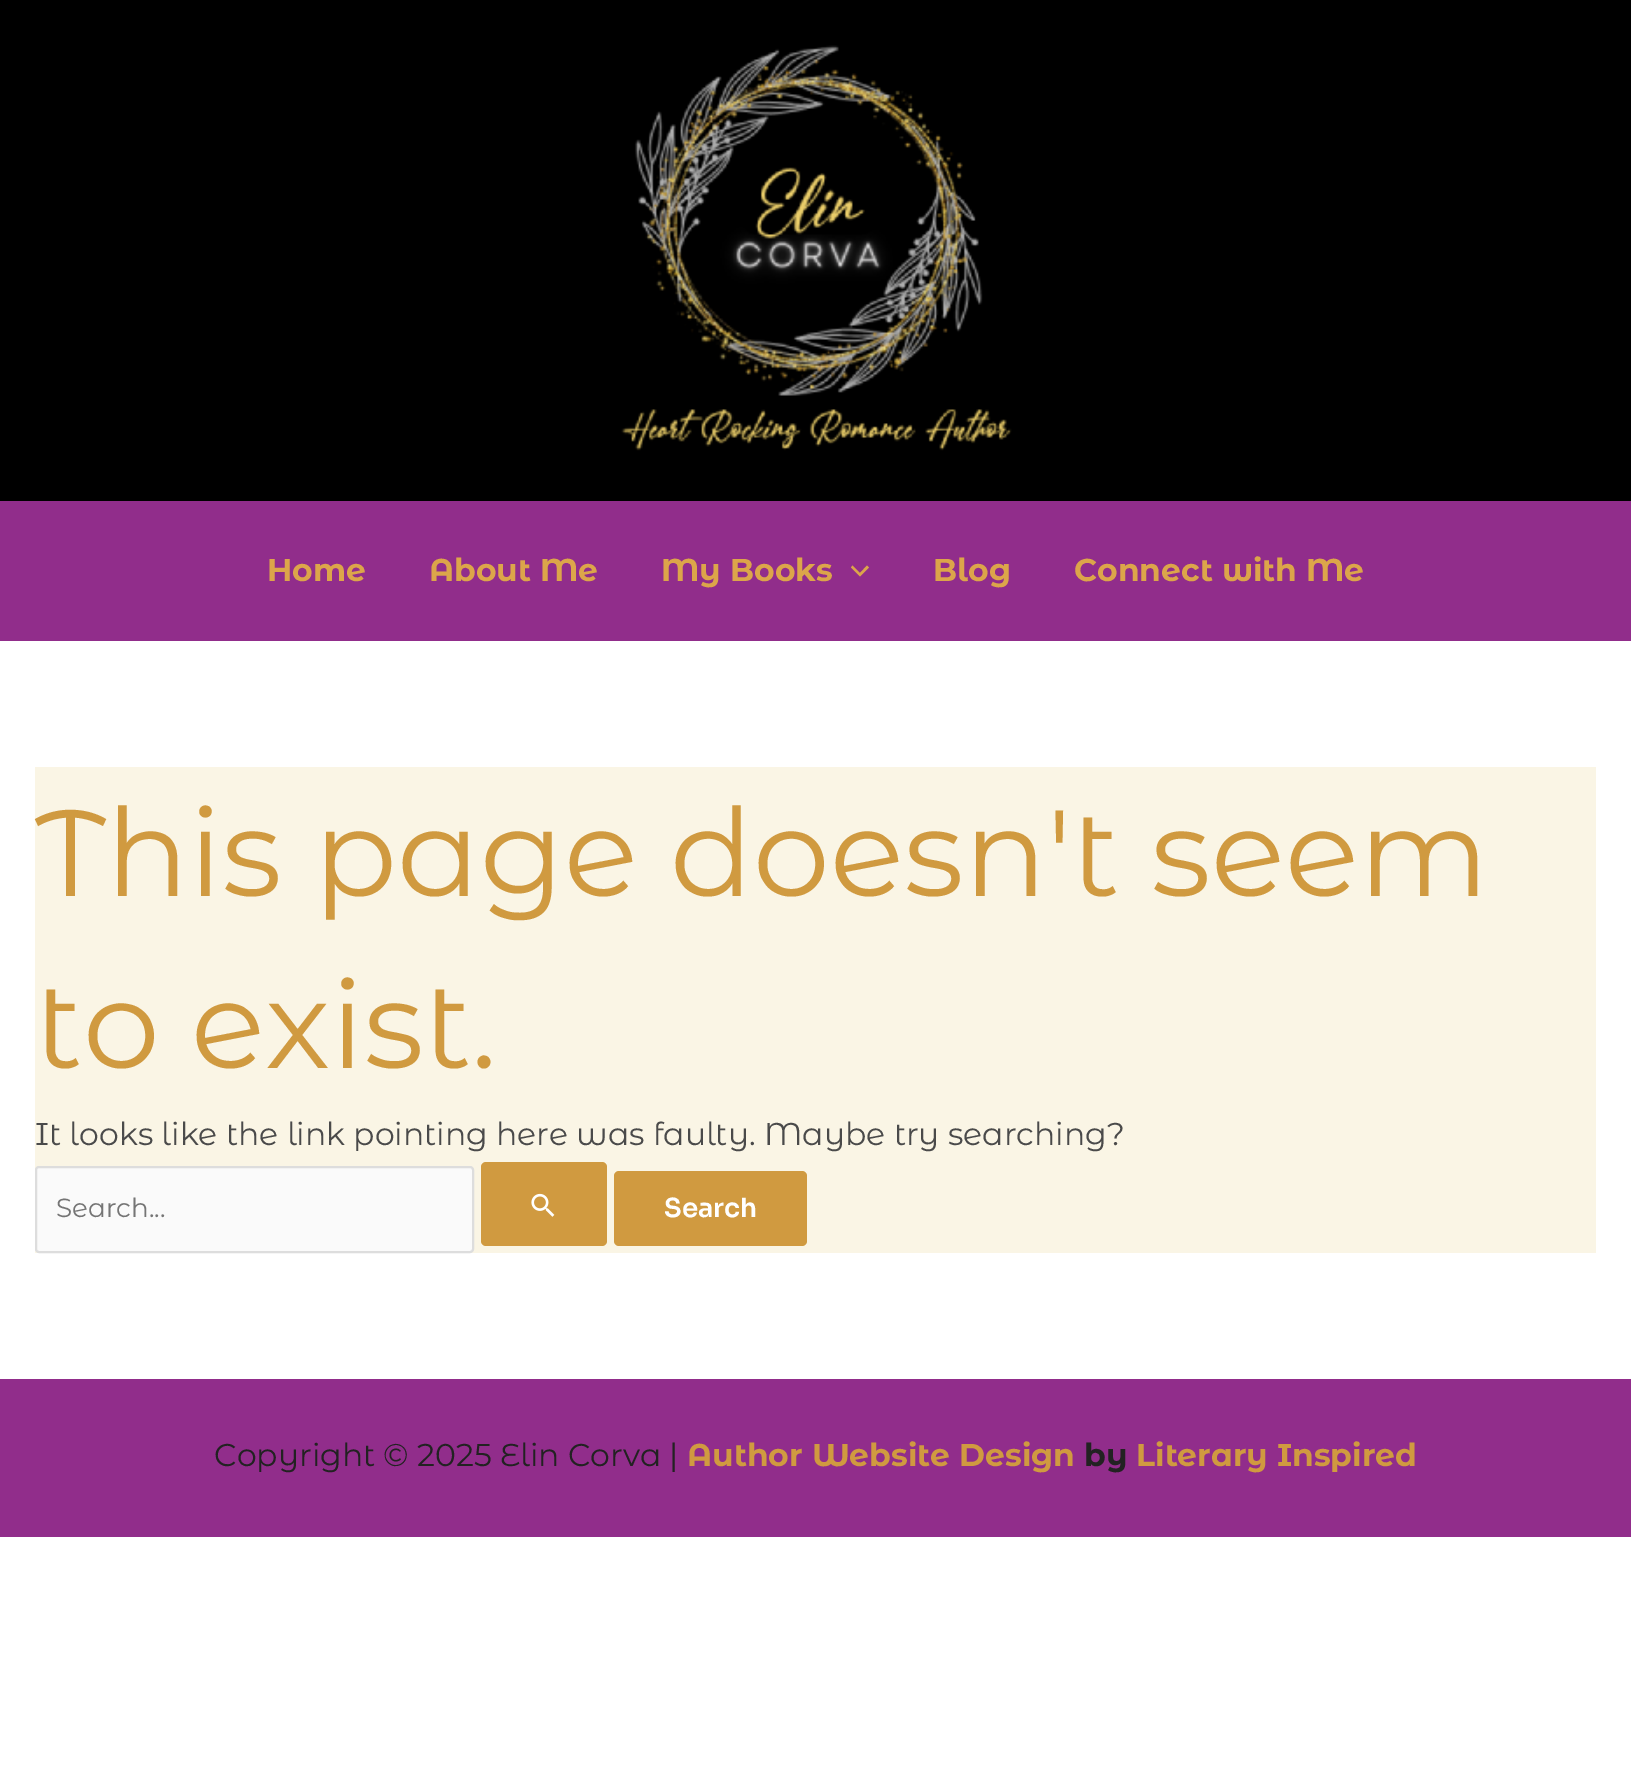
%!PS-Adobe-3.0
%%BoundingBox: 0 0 1631 1777
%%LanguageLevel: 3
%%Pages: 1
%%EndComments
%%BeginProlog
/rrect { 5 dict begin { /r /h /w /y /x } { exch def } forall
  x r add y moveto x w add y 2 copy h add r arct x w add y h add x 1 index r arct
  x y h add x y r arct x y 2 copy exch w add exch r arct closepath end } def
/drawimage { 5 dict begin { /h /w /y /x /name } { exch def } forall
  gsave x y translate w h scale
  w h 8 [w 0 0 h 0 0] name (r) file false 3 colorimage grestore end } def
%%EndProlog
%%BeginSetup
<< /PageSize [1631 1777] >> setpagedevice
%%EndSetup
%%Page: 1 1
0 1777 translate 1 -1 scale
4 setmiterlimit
1 setgray
0 0 1631 1777 rectfill
0 setgray
0 0 1631 501 rectfill
(images/1.raw) 621 45 391 406 drawimage
0.569 0.176 0.545 setrgbcolor
0 501 1631 140 rectfill
0.863 0.647 0.29 setrgbcolor
newpath 851 567.5 moveto 860 576.5 lineto 869 567.5 lineto 867 565.5 lineto 860 573 lineto 852.5 565.5 lineto closepath fill
0.98 0.961 0.898 setrgbcolor
35 767 1561 486 rectfill
0.98 setgray
36 1167 437 85 3 rrect gsave fill grestore
0.867 setgray
2 setlinewidth
stroke
0.816 0.604 0.251 setrgbcolor
481 1162 126 84 5 rrect fill
(images/2.raw) 531 1193 24 24 drawimage
614 1171 193 75 5 rrect fill
0.569 0.176 0.545 setrgbcolor
0 1379 1631 158 rectfill
/MontserratAlternates-Bold [31.5 0 0 -31.5 0 0] selectfont
0.863 0.647 0.29 setrgbcolor
267 581 moveto (Home) show
429 581 moveto (About Me) show
661 581 moveto (My Books) show
933 581 moveto (Blog) show
1074 581 moveto (Connect with Me) show
/MontserratAlternates-Regular [122.5 0 0 -122.5 0 0] selectfont
0.816 0.604 0.251 setrgbcolor
35 896 moveto (This page doesn't seem) show
35 1068 moveto (to exist.) show
/MontserratAlternates-Regular [31.5 0 0 -31.5 0 0] selectfont
0.29 setgray
35 1145 moveto (It looks like the link pointing here was faulty. Maybe try searching?) show
/MontserratAlternates-Regular [26.25 0 0 -26.25 0 0] selectfont
0.459 setgray
56 1217 moveto (Search...) show
/Sora-SemiBold [26.25 0 0 -26.25 0 0] selectfont
1 setgray
664 1217 moveto (Search) show
/MontserratAlternates-Regular [31.5 0 0 -31.5 0 0] selectfont
0.133 setgray
214 1466 moveto (Copyright © 2025 Elin Corva |) show
/MontserratAlternates-Bold [31.5 0 0 -31.5 0 0] selectfont
0.816 0.604 0.251 setrgbcolor
687 1466 moveto (Author Website Design) show
0.133 setgray
1084 1466 moveto (by) show
0.816 0.604 0.251 setrgbcolor
1136 1466 moveto (Literary Inspired) show
showpage
%%EOF
